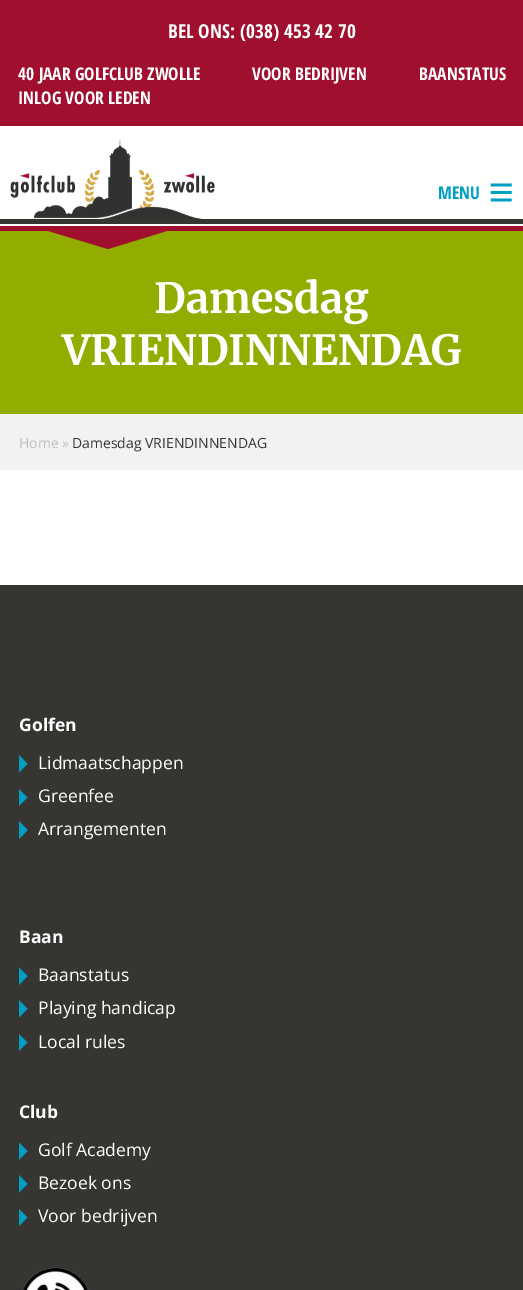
%!PS-Adobe-3.0
%%BoundingBox: 0 0 523 1290
%%LanguageLevel: 3
%%Pages: 1
%%EndComments
%%BeginProlog
/drawimage { 5 dict begin { /h /w /y /x /name } { exch def } forall
  gsave x y translate w h scale
  w h 8 [w 0 0 h 0 0] name (r) file false 3 colorimage grestore end } def
%%EndProlog
%%BeginSetup
<< /PageSize [523 1290] >> setpagedevice
%%EndSetup
%%Page: 1 1
0 1290 translate 1 -1 scale
4 setmiterlimit
1 setgray
0 0 523 1290 rectfill
0.631 0.059 0.18 setrgbcolor
0 0 523 126 rectfill
(images/1.raw) 10 140 205 79 drawimage
0 226 523 5 rectfill
0.573 0.678 0 setrgbcolor
0 231 523 183 rectfill
0.631 0.059 0.18 setrgbcolor
newpath 45 230 moveto 170 230 lineto 108 249 lineto closepath fill
(images/2.raw) 490 183 22 19 drawimage
0.216 0.208 0.196 setrgbcolor
0 219 523 5 rectfill
0.949 setgray
0 414 523 56 rectfill
0.216 0.208 0.196 setrgbcolor
0 585 523 705 rectfill
0 0.627 0.773 setrgbcolor
newpath 19 772.5 moveto 19 755 lineto 27.5 764 lineto closepath 19 806 moveto 19 789 lineto 27.5 797.5 lineto closepath fill
newpath 19 839 moveto 19 821 lineto 27.5 830 lineto closepath fill
newpath 19 985 moveto 19 967.5 lineto 27.5 976 lineto closepath 19 1017.5 moveto 19 1000 lineto 27.5 1009 lineto closepath fill
newpath 19 1051 moveto 19 1034 lineto 27.5 1042.5 lineto closepath fill
newpath 19 1160 moveto 19 1142.5 lineto 27.5 1151 lineto closepath 19 1192.5 moveto 19 1175 lineto 27.5 1184 lineto closepath fill
newpath 19 1226 moveto 19 1209 lineto 27.5 1217.5 lineto closepath fill
(images/3.raw) 23 1267 66 23 drawimage
/OpenSansCondensed-Bold [19.25 0 0 -19.25 0 0] selectfont
1 setgray
168 38 moveto (BEL ONS: \(038\) 453 42 70) show
/OpenSansCondensed-Bold [17.5 0 0 -17.5 0 0] selectfont
18 80 moveto (40 JAAR GOLFCLUB ZWOLLE) show
252 80 moveto (VOOR BEDRIJVEN) show
419 80 moveto (BAANSTATUS) show
18 104 moveto (INLOG VOOR LEDEN) show
0 0.627 0.773 setrgbcolor
438 199 moveto (MENU) show
/Merriweather-Bold [41.5 0 0 -41.5 0 0] selectfont
1 setgray
154 313 moveto (Damesdag) show
62 365 moveto (VRIENDINNENDAG) show
/OpenSans-Regular [14 0 0 -14 0 0] selectfont
0.749 setgray
19 448 moveto (Home ») show
0.216 0.208 0.196 setrgbcolor
72 448 moveto (Damesdag VRIENDINNENDAG) show
/OpenSans-Bold [17.5 0 0 -17.5 0 0] selectfont
1 setgray
19 731 moveto (Golfen) show
/OpenSans-Regular [17.5 0 0 -17.5 0 0] selectfont
38 769 moveto (Lidmaatschappen) show
38 802 moveto (Greenfee) show
38 835 moveto (Arrangementen) show
/OpenSans-Bold [17.5 0 0 -17.5 0 0] selectfont
19 943 moveto (Baan) show
/OpenSans-Regular [17.5 0 0 -17.5 0 0] selectfont
38 981 moveto (Baanstatus) show
38 1014 moveto (Playing handicap) show
38 1048 moveto (Local rules) show
/OpenSans-Bold [17.5 0 0 -17.5 0 0] selectfont
19 1118 moveto (Club) show
/OpenSans-Regular [17.5 0 0 -17.5 0 0] selectfont
38 1156 moveto (Golf Academy) show
38 1189 moveto (Bezoek ons) show
38 1222 moveto (Voor bedrijven) show
showpage
%%EOF
